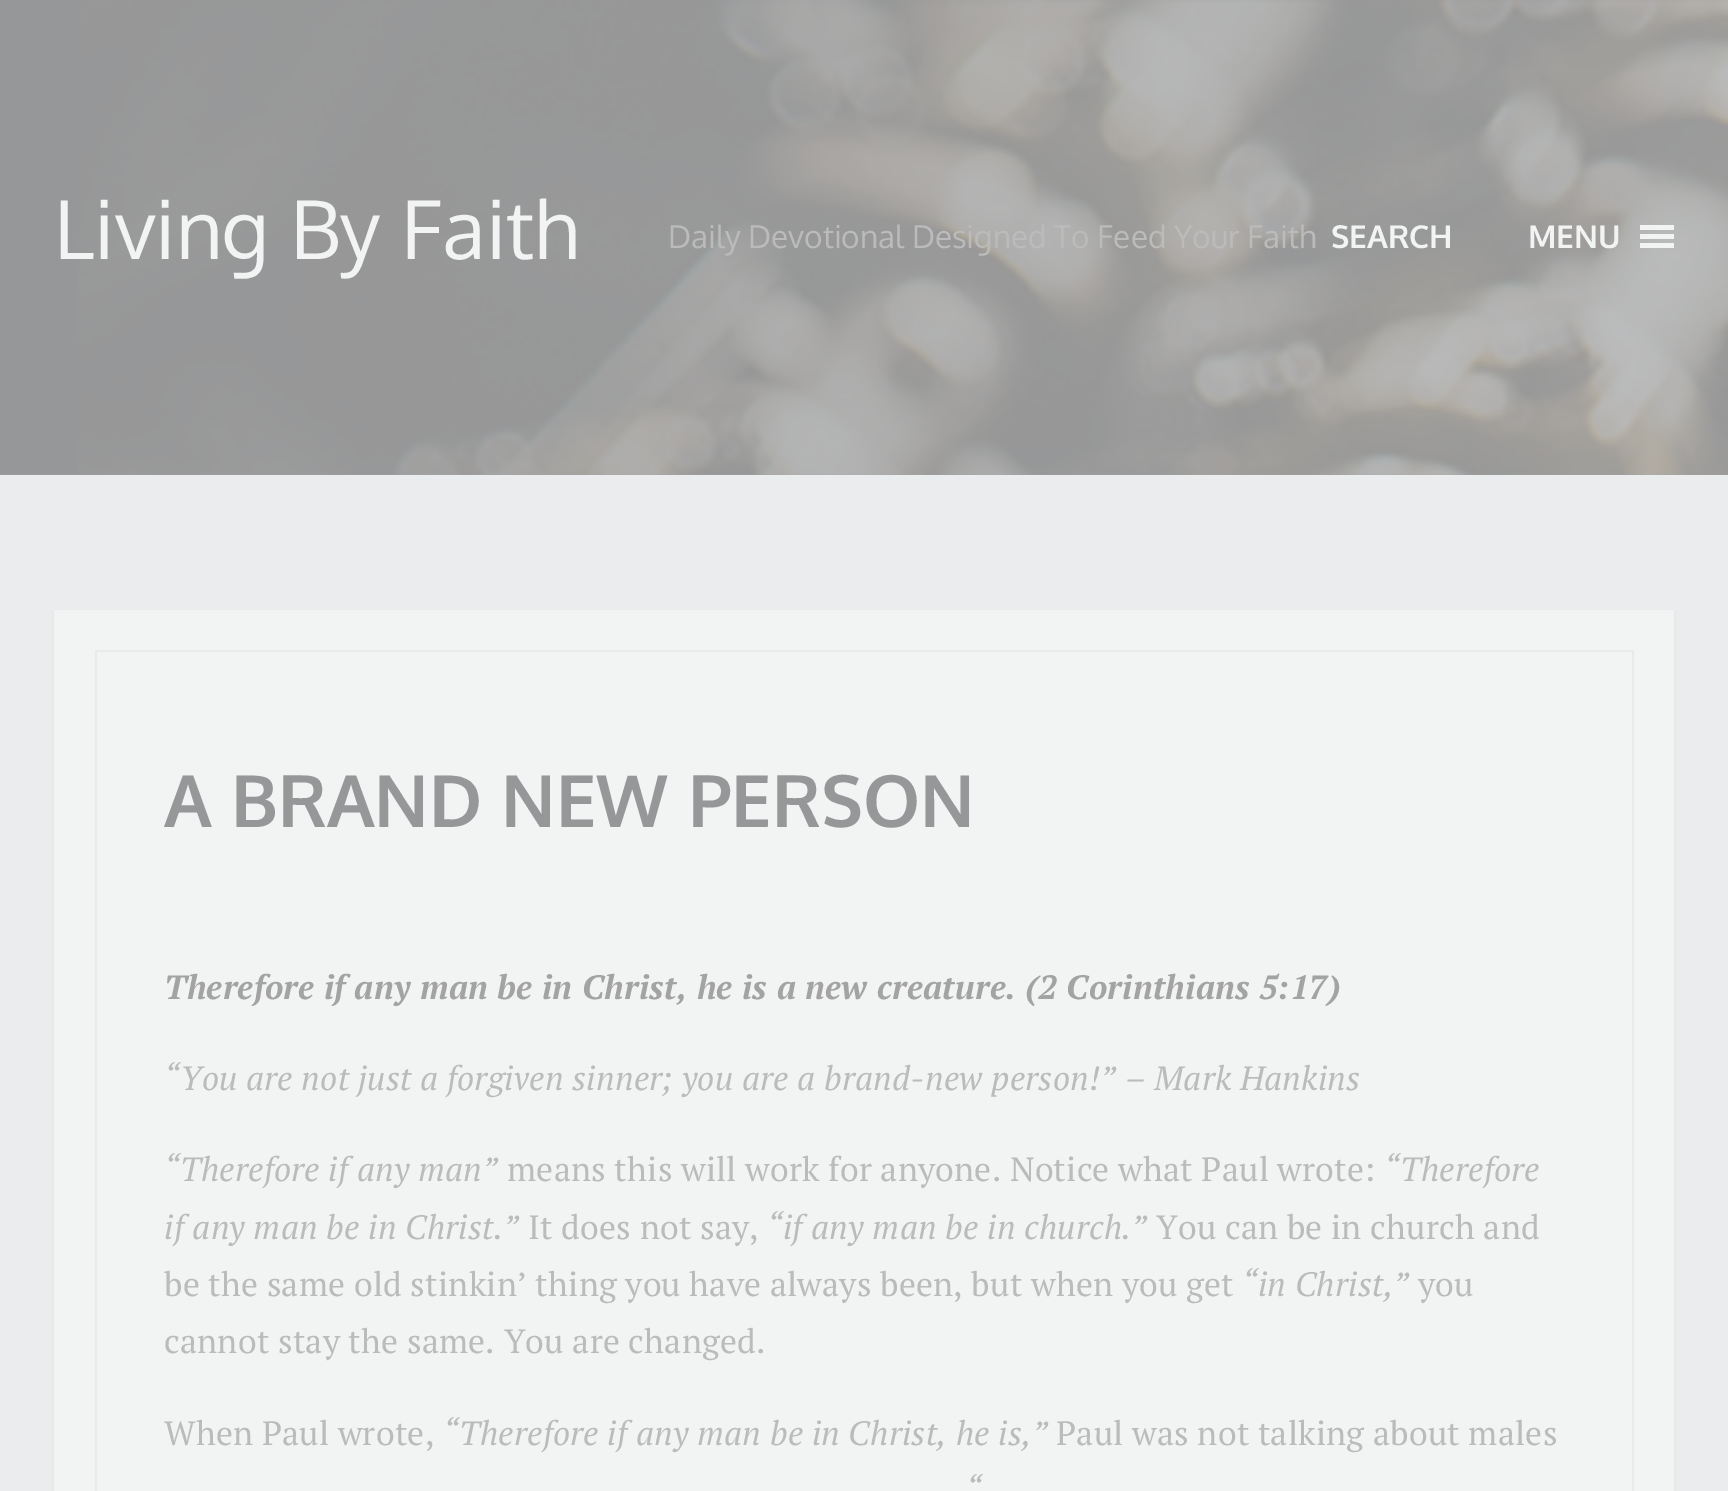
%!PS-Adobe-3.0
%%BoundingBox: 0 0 1728 1491
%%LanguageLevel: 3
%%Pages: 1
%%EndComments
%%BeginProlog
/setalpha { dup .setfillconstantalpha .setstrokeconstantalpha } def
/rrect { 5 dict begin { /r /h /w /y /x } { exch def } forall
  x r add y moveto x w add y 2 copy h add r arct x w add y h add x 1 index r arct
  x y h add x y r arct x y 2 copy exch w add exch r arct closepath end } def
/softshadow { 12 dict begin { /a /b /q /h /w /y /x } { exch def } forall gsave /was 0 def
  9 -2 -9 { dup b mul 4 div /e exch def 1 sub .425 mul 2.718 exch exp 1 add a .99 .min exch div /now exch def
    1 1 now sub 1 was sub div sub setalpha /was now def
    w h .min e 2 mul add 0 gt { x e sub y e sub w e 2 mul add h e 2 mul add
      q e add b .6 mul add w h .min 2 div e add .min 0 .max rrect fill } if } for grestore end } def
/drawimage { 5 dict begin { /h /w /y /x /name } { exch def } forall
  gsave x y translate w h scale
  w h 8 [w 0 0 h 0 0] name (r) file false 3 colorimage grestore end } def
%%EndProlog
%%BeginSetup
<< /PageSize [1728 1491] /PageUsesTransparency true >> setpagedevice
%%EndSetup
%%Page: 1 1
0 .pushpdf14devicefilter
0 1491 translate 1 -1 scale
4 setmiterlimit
0.922 0.925 0.929 setrgbcolor
0 0 1728 1491 rectfill
(images/1.raw) 0 0 1728 475 drawimage
0.949 0.953 0.953 setrgbcolor
1640 225 34 5 rectfill
1640 234 34 5 rectfill
1640 243 34 5 rectfill
0.588 0.592 0.596 setrgbcolor
54 612 1620 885 0 2 0.12 softshadow
0.949 0.953 0.953 setrgbcolor
54 610 1620 881 rectfill
0.914 0.918 0.918 setrgbcolor
2 setlinewidth
96 651 1537 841 rectstroke
/Oxygen-Regular [81 0 0 -81 0 0] selectfont
0.949 0.953 0.953 setrgbcolor
54 259 moveto (Living By Faith) show
/Oxygen-Regular [31.5 0 0 -31.5 0 0] selectfont
0.733 setgray
668 248 moveto (Daily Devotional Designed To Feed Your Faith) show
/Oxygen-Bold [31.5 0 0 -31.5 0 0] selectfont
0.949 0.953 0.953 setrgbcolor
1331 248 moveto (SEARCH) show
1528 248 moveto (MENU) show
/Oxygen-Bold [72 0 0 -72 0 0] selectfont
0.588 0.592 0.596 setrgbcolor
164 827 moveto (A BRAND NEW PERSON) show
/PTSerif-BoldItalic [33.75 0 0 -33.75 0 0] selectfont
0.639 0.639 0.643 setrgbcolor
164 999 moveto 0.23 0 (Therefore if any man be in Christ, he is a new creature. \(2 Corinthians 5:17\)) ashow
/PTSerif-Italic [33.75 0 0 -33.75 0 0] selectfont
0.733 setgray
164 1090 moveto 0.23 0 (“You are not just a forgiven sinner; you are a brand-new person!” – Mark Hankins) ashow
164 1181 moveto 0.23 0 (“Therefore if any man”) ashow
/PTSerif-Regular [33.75 0 0 -33.75 0 0] selectfont
507 1181 moveto 0.23 0 (means this will work for anyone. Notice what Paul wrote:) ashow
/PTSerif-Italic [33.75 0 0 -33.75 0 0] selectfont
1384 1181 moveto 0.23 0 (“Therefore) ashow
164 1239 moveto 0.23 0 (if any man be in Christ.”) ashow
/PTSerif-Regular [33.75 0 0 -33.75 0 0] selectfont
528 1239 moveto 0.23 0 (It does not say,) ashow
/PTSerif-Italic [33.75 0 0 -33.75 0 0] selectfont
767 1239 moveto 0.23 0 (“if any man be in church.”) ashow
/PTSerif-Regular [33.75 0 0 -33.75 0 0] selectfont
1156 1239 moveto 0.23 0 (You can be in church and) ashow
164 1296 moveto 0.23 0 (be the same old stinkin’ thing you have always been, but when you get) ashow
/PTSerif-Italic [33.75 0 0 -33.75 0 0] selectfont
1242 1296 moveto 0.23 0 (“in Christ,”) ashow
/PTSerif-Regular [33.75 0 0 -33.75 0 0] selectfont
1418 1296 moveto 0.23 0 (you) ashow
164 1353 moveto 0.23 0 (cannot stay the same. You are changed.) ashow
164 1445 moveto 0.23 0 (When Paul wrote,) ashow
/PTSerif-Italic [33.75 0 0 -33.75 0 0] selectfont
443 1445 moveto 0.23 0 (“Therefore if any man be in Christ, he is,”) ashow
/PTSerif-Regular [33.75 0 0 -33.75 0 0] selectfont
1056 1445 moveto 0.23 0 (Paul was not talking about males) ashow
/PTSerif-Italic [33.75 0 0 -33.75 0 0] selectfont
966 1502 moveto 0.23 0 (“) ashow
.poppdf14devicefilter showpage
%%EOF
